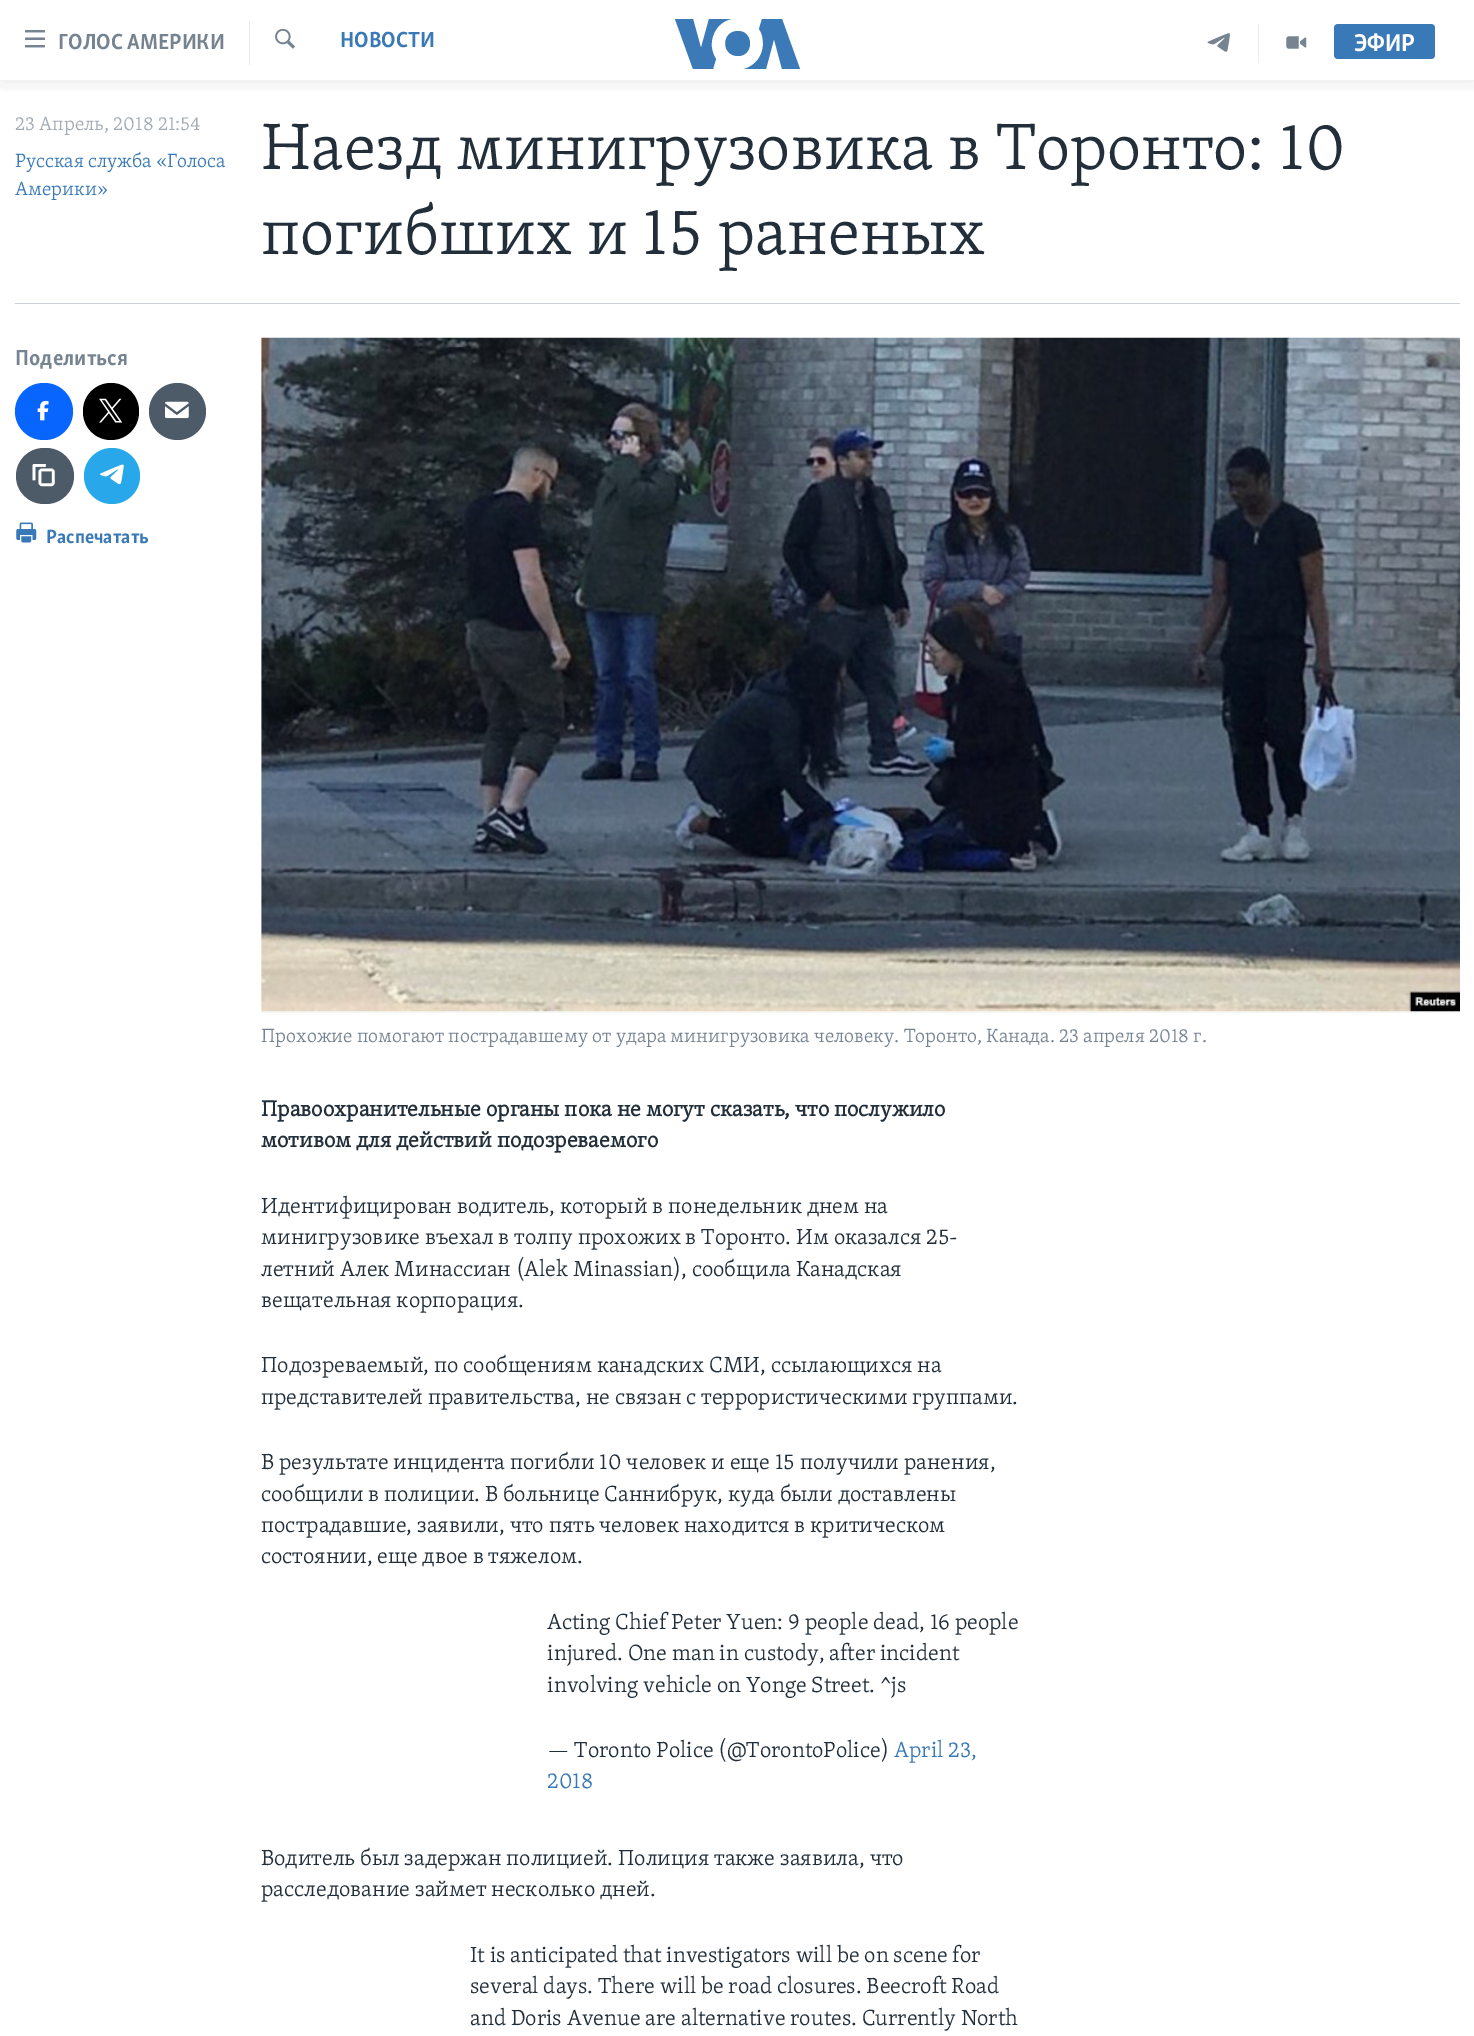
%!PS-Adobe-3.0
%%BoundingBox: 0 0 1474 2036
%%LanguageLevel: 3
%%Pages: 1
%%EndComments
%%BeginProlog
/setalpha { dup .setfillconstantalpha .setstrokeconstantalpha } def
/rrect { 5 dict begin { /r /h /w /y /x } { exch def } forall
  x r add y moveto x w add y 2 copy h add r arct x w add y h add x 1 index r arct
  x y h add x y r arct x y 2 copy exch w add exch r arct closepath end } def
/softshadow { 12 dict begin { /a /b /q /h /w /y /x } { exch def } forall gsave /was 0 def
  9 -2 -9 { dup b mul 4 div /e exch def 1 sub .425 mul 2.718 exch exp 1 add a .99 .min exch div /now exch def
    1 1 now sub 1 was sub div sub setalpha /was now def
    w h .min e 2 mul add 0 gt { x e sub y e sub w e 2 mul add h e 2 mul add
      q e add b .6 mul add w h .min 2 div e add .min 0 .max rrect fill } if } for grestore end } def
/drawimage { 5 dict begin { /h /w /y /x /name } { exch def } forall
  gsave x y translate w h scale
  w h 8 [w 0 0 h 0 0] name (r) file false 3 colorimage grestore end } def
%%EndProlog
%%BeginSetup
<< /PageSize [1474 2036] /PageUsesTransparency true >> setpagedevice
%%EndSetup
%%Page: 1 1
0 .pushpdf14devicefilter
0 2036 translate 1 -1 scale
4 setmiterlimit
1 setgray
0 0 1474 2036 rectfill
gsave
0 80 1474 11 rectclip
0 setgray
0 0 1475 80 0 12.5 0.1 softshadow
grestore
(images/1.raw) 25 30 20 18 drawimage
0.922 setgray
249 21 1 44 rectfill
(images/2.raw) 275 28 20 21 drawimage
0.231 0.475 0.718 setrgbcolor
newpath 716 59 moveto 713 69 lineto 693 69 lineto 675 19 lineto 693 19 lineto 701 48 lineto 709 19 lineto 731 19 lineto 714 23 706 44 716 59 curveto closepath 738 31 moveto 721 31 721 56 738 56 curveto 754 56 754 31 738 31 curveto closepath 763 44 moveto 763 56 755 66 744 69 curveto 766 69 lineto 774 39 lineto 782 69 lineto 800 69 lineto 782 19 lineto 762 19 lineto 759 29 lineto 762 33 763 38 763 44 curveto closepath fill
0.922 setgray
1258 24 1 39 rectfill
(images/3.raw) 1207 33 23 19 drawimage
(images/4.raw) 1286 36 21 13 drawimage
0.227 0.475 0.718 setrgbcolor
1334 24 101 35 4 rrect fill
0.796 0.82 0.839 setrgbcolor
15 303 1445 1 rectfill
0.031 0.4 1 setrgbcolor
15 383 58 57 28.5 rrect fill
(images/5.raw) 37 400 12 21 drawimage
0 setgray
83 383 56 57 28 rrect fill
(images/6.raw) 99 398 24 25 drawimage
0.302 0.353 0.404 setrgbcolor
newpath 177.5 411.5 28.5 0 360 arc closepath fill
(images/7.raw) 165 401 24 18 drawimage
16 448 58 56 28 rrect fill
(images/8.raw) 32 464 23 23 drawimage
0.157 0.659 0.918 setrgbcolor
newpath 112 476 28 0 360 arc closepath fill
(images/9.raw) 100 464 24 21 drawimage
(images/10.raw) 16 522 21 21 drawimage
0.965 0.969 0.973 setrgbcolor
261 338 1199 675 rectfill
(images/11.raw) 261 337 1199 675 drawimage
/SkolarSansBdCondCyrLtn-Bold [22.5 0 0 -22.5 0 0] selectfont
0.463 0.518 0.573 setrgbcolor
58 49 moveto (ГОЛОС АМЕРИКИ) show
0.227 0.475 0.718 setrgbcolor
340 47 moveto (НОВОСТИ) show
/SkolarSansBdCondCyrLtn-Bold [25 0 0 -25 0 0] selectfont
1 setgray
1354 51 moveto (ЭФИР) show
/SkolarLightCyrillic-Light [19.7 0 0 -19.7 0 0] selectfont
0.631 0.667 0.706 setrgbcolor
15 130 moveto (23 Апрель, 2018 21:54) show
0.227 0.475 0.718 setrgbcolor
15 167 moveto (Русская служба «Голоса) show
15 195 moveto (Америки») show
/SkolarLightCyrillic-Light [67.5 0 0 -67.5 0 0] selectfont
0.133 0.184 0.227 setrgbcolor
261 169 moveto (Наезд минигрузовика в Торонто: 10) show
261 254 moveto (погибших и 15 раненых) show
/SkolarSansBdCondCyrLtn-Bold [22.5 0 0 -22.5 0 0] selectfont
0.463 0.518 0.573 setrgbcolor
15 365 moveto (Поделиться) show
/SkolarSansBdCondCyrLtn-Bold [19.7 0 0 -19.7 0 0] selectfont
0.227 0.475 0.718 setrgbcolor
46 543 moveto (Распечатать) show
/SkolarLightCyrillic-Light [19.7 0 0 -19.7 0 0] selectfont
0.463 0.518 0.573 setrgbcolor
261 1042 moveto (Прохожие помогают пострадавшему от удара минигрузовика человеку. Торонто, Канада. 23 апреля 2018 г.) show
/SkolarLightCyrillic-Bold [22.5 0 0 -22.5 0 0] selectfont
0.133 0.184 0.227 setrgbcolor
261 1116 moveto (Правоохранительные органы пока не могут сказать, что послужило) show
261 1147 moveto (мотивом для действий подозреваемого) show
/SkolarLightCyrillic-Light [22.5 0 0 -22.5 0 0] selectfont
261 1213 moveto (Идентифицирован водитель, который в понедельник днем на) show
261 1244 moveto (минигрузовике въехал в толпу прохожих в Торонто. Им оказался 25-) show
261 1276 moveto (летний Алек Минассиан \(Alek Minassian\), сообщила Канадская) show
261 1307 moveto (вещательная корпорация.) show
261 1372 moveto (Подозреваемый, по сообщениям канадских СМИ, ссылающихся на) show
261 1404 moveto (представителей правительства, не связан с террористическими группами.) show
261 1469 moveto (В результате инцидента погибли 10 человек и еще 15 получили ранения,) show
261 1501 moveto (сообщили в полиции. В больнице Саннибрук, куда были доставлены) show
261 1532 moveto (пострадавшие, заявили, что пять человек находится в критическом) show
261 1563 moveto (состоянии, еще двое в тяжелом.) show
547 1629 moveto (Acting Chief Peter Yuen: 9 people dead, 16 people) show
547 1660 moveto (injured. One man in custody, after incident) show
547 1692 moveto (involving vehicle on Yonge Street. ^js) show
547 1757 moveto (— Toronto Police \(@TorontoPolice\)) show
0.227 0.475 0.718 setrgbcolor
894 1757 moveto (April 23,) show
547 1788 moveto (2018) show
0.133 0.184 0.227 setrgbcolor
261 1865 moveto (Водитель был задержан полицией. Полиция также заявила, что) show
261 1896 moveto (расследование займет несколько дней.) show
470 1962 moveto (It is anticipated that investigators will be on scene for) show
470 1993 moveto (several days. There will be road closures. Beecroft Road) show
470 2025 moveto (and Doris Avenue are alternative routes. Currently North) show
.poppdf14devicefilter showpage
%%EOF
